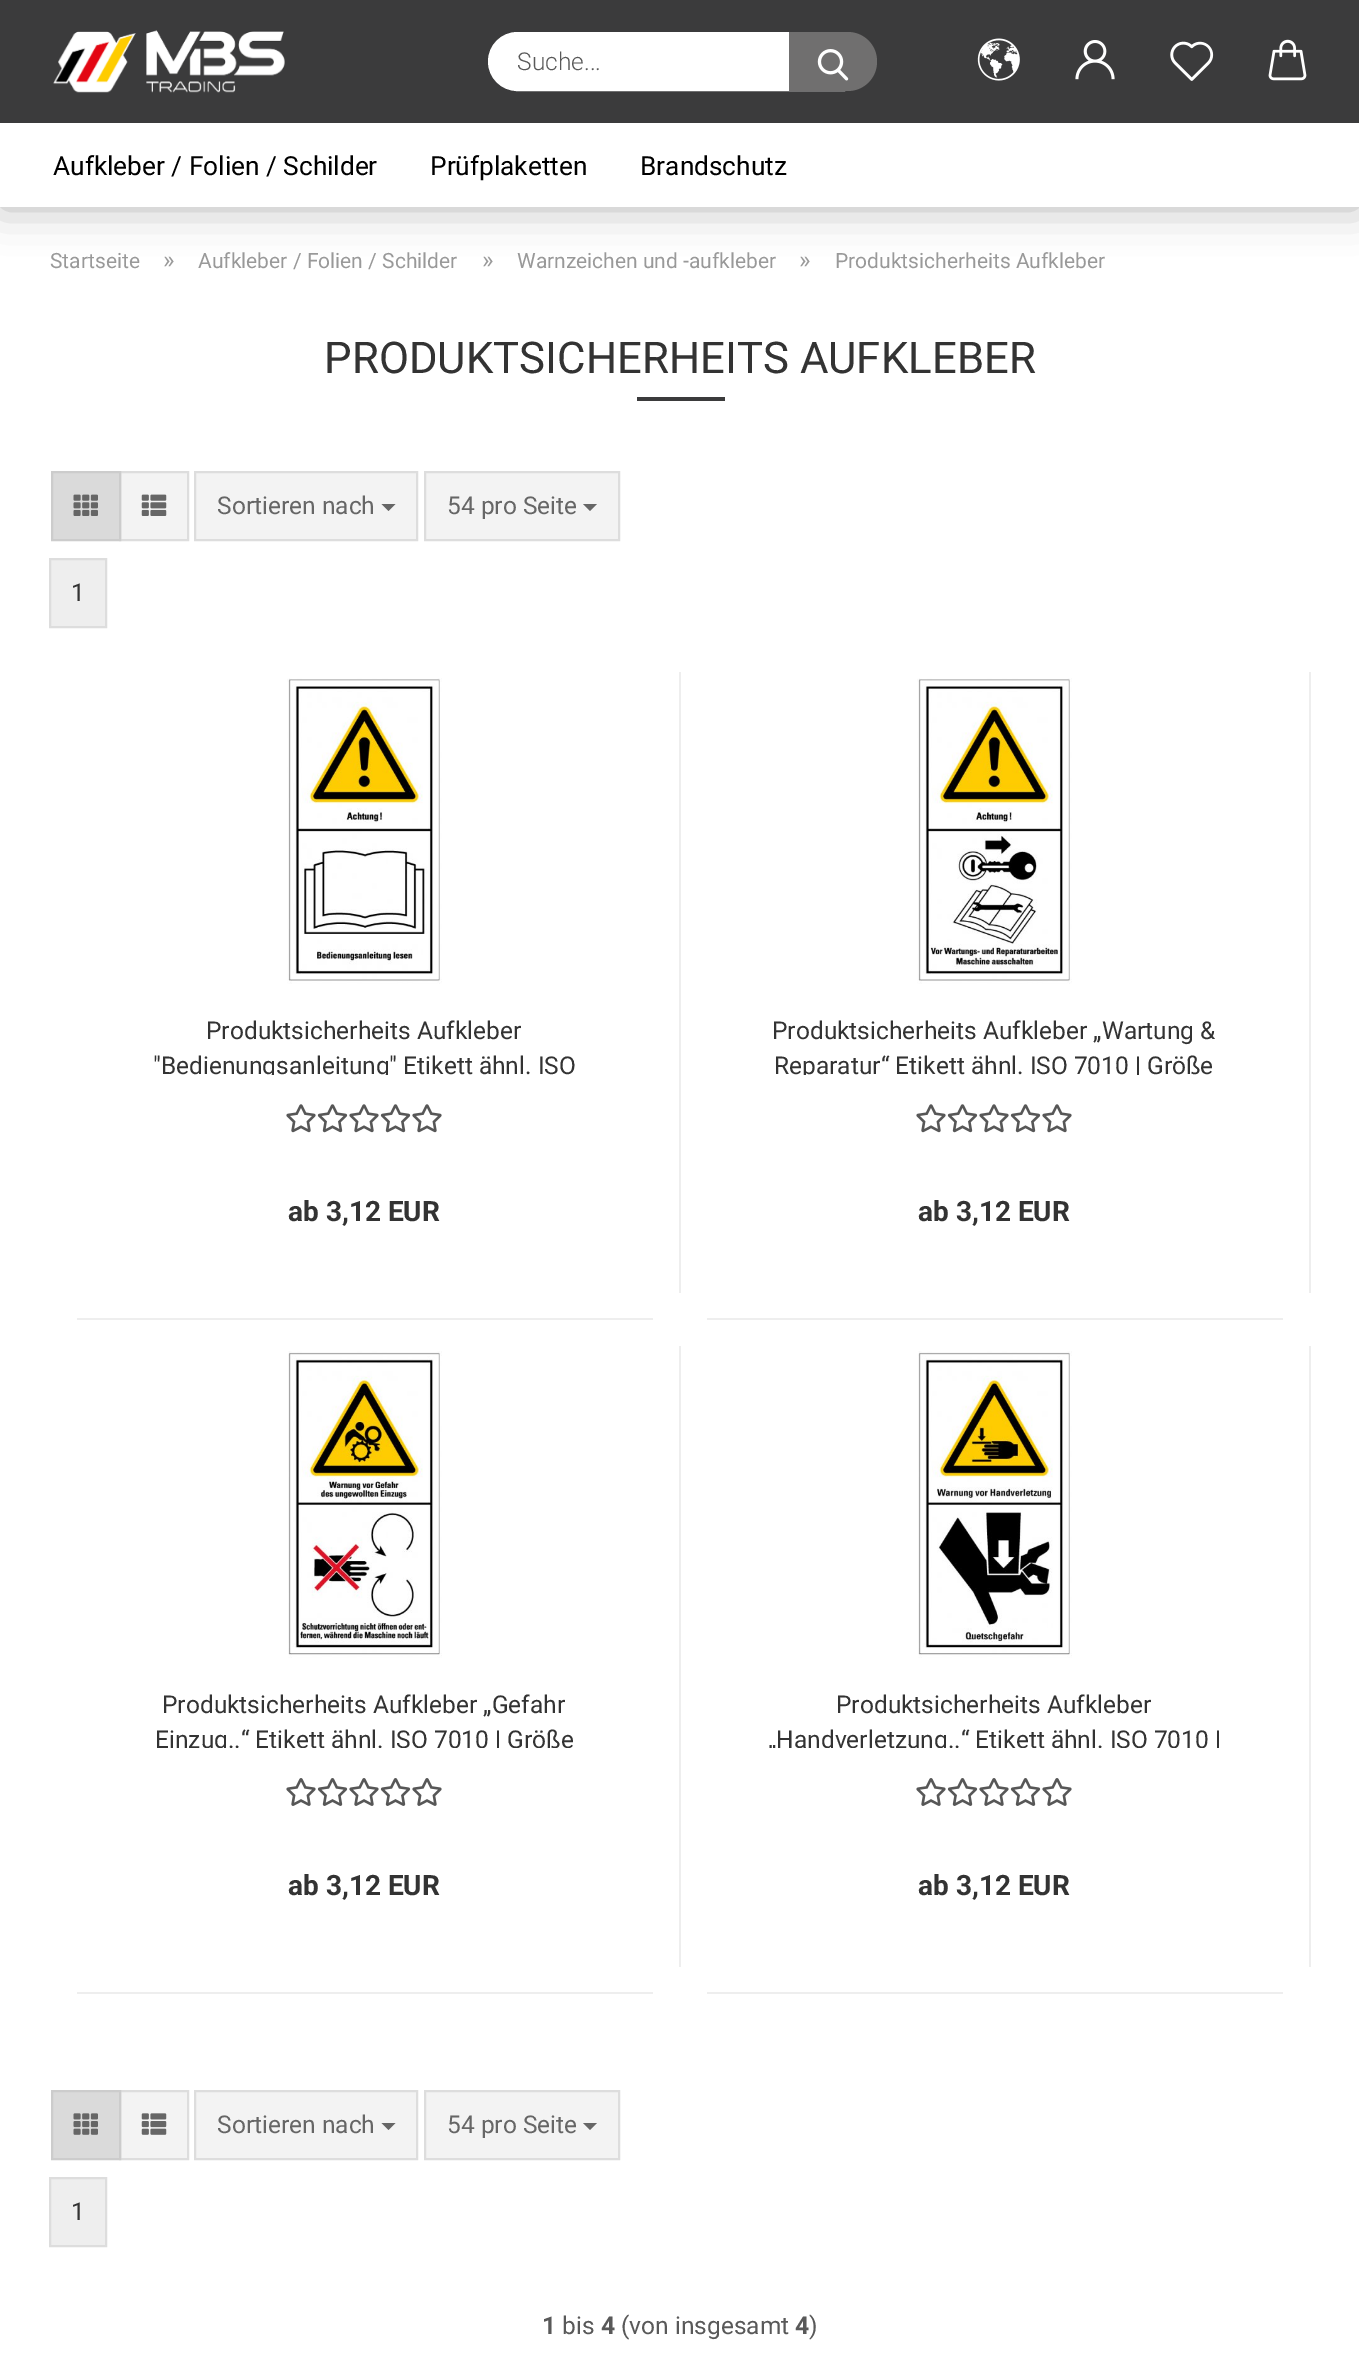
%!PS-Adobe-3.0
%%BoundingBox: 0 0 1359 2372
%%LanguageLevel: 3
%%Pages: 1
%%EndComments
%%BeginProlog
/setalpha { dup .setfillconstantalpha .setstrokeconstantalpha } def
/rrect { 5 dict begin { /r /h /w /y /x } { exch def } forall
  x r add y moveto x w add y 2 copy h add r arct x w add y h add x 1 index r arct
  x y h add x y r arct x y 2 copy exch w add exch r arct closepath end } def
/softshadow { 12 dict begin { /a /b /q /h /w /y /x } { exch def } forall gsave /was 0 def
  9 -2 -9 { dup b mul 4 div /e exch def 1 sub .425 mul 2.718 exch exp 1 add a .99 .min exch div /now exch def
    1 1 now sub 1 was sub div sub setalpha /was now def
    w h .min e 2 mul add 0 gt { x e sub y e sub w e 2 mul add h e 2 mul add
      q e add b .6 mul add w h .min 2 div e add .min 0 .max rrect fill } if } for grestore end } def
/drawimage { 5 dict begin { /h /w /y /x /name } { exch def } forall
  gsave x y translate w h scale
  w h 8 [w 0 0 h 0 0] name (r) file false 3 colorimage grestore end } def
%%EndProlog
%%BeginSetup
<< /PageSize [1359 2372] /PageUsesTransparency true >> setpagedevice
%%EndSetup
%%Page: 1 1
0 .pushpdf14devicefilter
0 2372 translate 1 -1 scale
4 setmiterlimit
1 setgray
0 0 1359 2372 rectfill
0 setgray
0 0 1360 207 0 22 0.3 softshadow
0.231 0.231 0.235 setrgbcolor
0 0 1359 123 rectfill
(images/1.raw) 53 30 232 63 drawimage
1 setgray
490 34 381 55 27.5 rrect gsave fill grestore
4 setlinewidth
stroke
0.439 0.435 0.435 setrgbcolor
newpath 789 32 moveto 847.5 32 lineto 864 32 877 45 877 61.5 curveto 877 78 864 91 847.5 91 curveto 789 91 lineto closepath fill
(images/2.raw) 817 49 32 32 drawimage
(images/3.raw) 977 38 43 43 drawimage
(images/4.raw) 1075 40 40 40 drawimage
(images/5.raw) 1170 41 44 40 drawimage
(images/6.raw) 1268 39 39 42 drawimage
1 setgray
0 123 1359 84 rectfill
0.231 0.231 0.235 setrgbcolor
637 397 88 4 rectfill
0.953 setgray
newpath 120 472 moveto 188 472 lineto 188 540 lineto 120 540 lineto closepath gsave fill grestore
0.867 setgray
2 setlinewidth
stroke
0.855 setgray
newpath 52 472 moveto 120 472 lineto 120 540 lineto 52 540 lineto closepath gsave fill grestore
0.8 setgray
stroke
(images/7.raw) 73 494 25 22 drawimage
(images/8.raw) 141 494 26 22 drawimage
0.953 setgray
newpath 195 472 moveto 417 472 lineto 417 540 lineto 195 540 lineto closepath gsave fill grestore
0.867 setgray
stroke
0.4 setgray
newpath 381.5 504 moveto 395.5 504 lineto 388.5 511 lineto closepath fill
0.953 setgray
newpath 425 472 moveto 619 472 lineto 619 540 lineto 425 540 lineto closepath gsave fill grestore
0.867 setgray
stroke
0.4 setgray
newpath 583 504 moveto 597 504 lineto 590 511 lineto closepath fill
0.933 setgray
newpath 50 559 moveto 106 559 lineto 106 627 lineto 50 627 lineto closepath gsave fill grestore
0.867 setgray
stroke
0.933 setgray
679 672 2 621 rectfill
77 1318 576 2 rectfill
(images/9.raw) 287 678 155 306 drawimage
(images/10.raw) 286 1104 30 29 drawimage
(images/11.raw) 317 1104 31 29 drawimage
(images/10.raw) 349 1104 30 29 drawimage
(images/11.raw) 380 1104 31 29 drawimage
(images/10.raw) 412 1104 30 29 drawimage
1309 672 2 621 rectfill
707 1318 576 2 rectfill
(images/12.raw) 917 678 155 306 drawimage
(images/10.raw) 916 1104 30 29 drawimage
(images/11.raw) 947 1104 31 29 drawimage
(images/10.raw) 979 1104 30 29 drawimage
(images/11.raw) 1010 1104 31 29 drawimage
(images/10.raw) 1042 1104 30 29 drawimage
679 1346 2 621 rectfill
77 1992 576 2 rectfill
(images/13.raw) 288 1351 154 307 drawimage
(images/14.raw) 286 1778 30 28 drawimage
(images/15.raw) 317 1778 31 28 drawimage
(images/14.raw) 349 1778 30 28 drawimage
(images/15.raw) 380 1778 31 28 drawimage
(images/14.raw) 412 1778 30 28 drawimage
1309 1346 2 621 rectfill
707 1992 576 2 rectfill
(images/16.raw) 918 1351 154 307 drawimage
(images/14.raw) 916 1778 30 28 drawimage
(images/15.raw) 947 1778 31 28 drawimage
(images/14.raw) 979 1778 30 28 drawimage
(images/15.raw) 1010 1778 31 28 drawimage
(images/14.raw) 1042 1778 30 28 drawimage
0.953 setgray
newpath 120 2091 moveto 188 2091 lineto 188 2159 lineto 120 2159 lineto closepath gsave fill grestore
0.867 setgray
stroke
0.855 setgray
newpath 52 2091 moveto 120 2091 lineto 120 2159 lineto 52 2159 lineto closepath gsave fill grestore
0.8 setgray
stroke
(images/17.raw) 73 2113 25 22 drawimage
(images/18.raw) 141 2113 26 22 drawimage
0.953 setgray
newpath 195 2091 moveto 417 2091 lineto 417 2159 lineto 195 2159 lineto closepath gsave fill grestore
0.867 setgray
stroke
0.4 setgray
newpath 381.5 2123 moveto 395.5 2123 lineto 388.5 2130 lineto closepath fill
0.953 setgray
newpath 425 2091 moveto 619 2091 lineto 619 2159 lineto 425 2159 lineto closepath gsave fill grestore
0.867 setgray
stroke
0.4 setgray
newpath 583 2123 moveto 597 2123 lineto 590 2130 lineto closepath fill
0.933 setgray
newpath 50 2178 moveto 106 2178 lineto 106 2246 lineto 50 2246 lineto closepath gsave fill grestore
0.867 setgray
stroke
/Roboto-Light [24.5 0 0 -24.5 0 0] selectfont
0.349 setgray
517 70 moveto (Suche...) show
/Roboto-Regular [26.25 0 0 -26.25 0 0] selectfont
0 setgray
53 175 moveto (Aufkleber / Folien / Schilder) show
430 175 moveto (Prüfplaketten) show
640 175 moveto (Brandschutz) show
/Roboto-Regular [21 0 0 -21 0 0] selectfont
0.6 setgray
50 268 moveto (Startseite) show
/Roboto-Regular [24.5 0 0 -24.5 0 0] selectfont
163 268 moveto (») show
/Roboto-Regular [21 0 0 -21 0 0] selectfont
198 268 moveto (Aufkleber / Folien / Schilder) show
/Roboto-Regular [24.5 0 0 -24.5 0 0] selectfont
482 268 moveto (») show
/Roboto-Regular [21 0 0 -21 0 0] selectfont
517 268 moveto (Warnzeichen und -aufkleber) show
/Roboto-Regular [24.5 0 0 -24.5 0 0] selectfont
799 268 moveto (») show
/Roboto-Regular [21 0 0 -21 0 0] selectfont
835 268 moveto (Produktsicherheits Aufkleber) show
/Roboto-Regular [43.75 0 0 -43.75 0 0] selectfont
0.2 setgray
324 373 moveto (PRODUKTSICHERHEITS AUFKLEBER) show
/Roboto-Regular [24.5 0 0 -24.5 0 0] selectfont
0.4 setgray
217 514 moveto (Sortieren nach) show
447 514 moveto (54 pro Seite) show
0.2 setgray
71 601 moveto (1) show
206 1039 moveto (Produktsicherheits Aufkleber) show
gsave
130 1013 470 62 rectclip
153 1074 moveto ("Bedienungsanleitung" Etikett ähnl. ISO) show
grestore
/Roboto-Bold [28 0 0 -28 0 0] selectfont
288 1221 moveto (ab 3,12 EUR) show
/Roboto-Regular [24.5 0 0 -24.5 0 0] selectfont
772 1039 moveto (Produktsicherheits Aufkleber „Wartung &) show
gsave
760 1013 470 62 rectclip
774 1074 moveto (Reparatur“ Etikett ähnl. ISO 7010 | Größe) show
grestore
/Roboto-Bold [28 0 0 -28 0 0] selectfont
918 1221 moveto (ab 3,12 EUR) show
/Roboto-Regular [24.5 0 0 -24.5 0 0] selectfont
162 1713 moveto (Produktsicherheits Aufkleber „Gefahr) show
gsave
130 1687 470 61 rectclip
155 1748 moveto (Einzug..“ Etikett ähnl. ISO 7010 | Größe) show
grestore
/Roboto-Bold [28 0 0 -28 0 0] selectfont
288 1895 moveto (ab 3,12 EUR) show
/Roboto-Regular [24.5 0 0 -24.5 0 0] selectfont
836 1713 moveto (Produktsicherheits Aufkleber) show
gsave
760 1687 470 61 rectclip
768 1748 moveto („Handverletzung..“ Etikett ähnl. ISO 7010 |) show
grestore
/Roboto-Bold [28 0 0 -28 0 0] selectfont
918 1895 moveto (ab 3,12 EUR) show
/Roboto-Regular [24.5 0 0 -24.5 0 0] selectfont
0.4 setgray
217 2133 moveto (Sortieren nach) show
447 2133 moveto (54 pro Seite) show
0.2 setgray
71 2220 moveto (1) show
/Roboto-Bold [24.5 0 0 -24.5 0 0] selectfont
0.349 setgray
542 2334 moveto (1) show
/Roboto-Regular [24.5 0 0 -24.5 0 0] selectfont
562 2334 moveto (bis) show
/Roboto-Bold [24.5 0 0 -24.5 0 0] selectfont
601 2334 moveto (4) show
/Roboto-Regular [24.5 0 0 -24.5 0 0] selectfont
621 2334 moveto (\(von insgesamt) show
/Roboto-Bold [24.5 0 0 -24.5 0 0] selectfont
795 2334 moveto (4) show
/Roboto-Regular [24.5 0 0 -24.5 0 0] selectfont
809 2334 moveto (\)) show
.poppdf14devicefilter showpage
%%EOF
